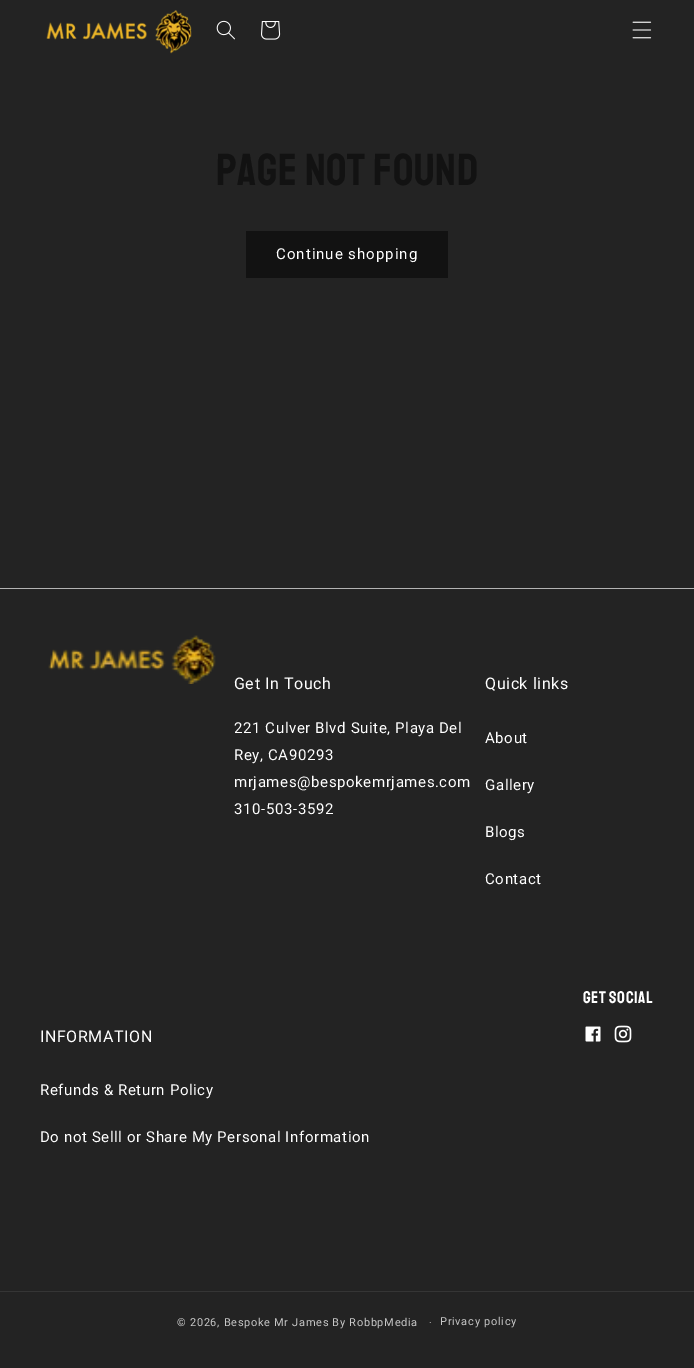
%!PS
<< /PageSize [694 1368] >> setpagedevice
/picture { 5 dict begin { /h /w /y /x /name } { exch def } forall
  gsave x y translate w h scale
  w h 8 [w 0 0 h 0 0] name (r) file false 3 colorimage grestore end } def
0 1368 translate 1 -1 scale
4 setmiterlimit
0.137 setgray
0 0 694 1368 rectfill
(img1.rgb) 46 10 146 44 picture
(img2.rgb) 216 20 19 20 picture
(img3.rgb) 261 21 20 19 picture
(img4.rgb) 632 21 20 18 picture
/Staatliches-Regular [45 0 0 -45 0 0] selectfont
0.071 setgray
216 185 moveto 0.6 0 (Page not found) ashow
246 231 202 47 rectfill
/Roboto-Regular [15 0 0 -15 0 0] selectfont
1 setgray
276 259 moveto 1 0 (Continue shopping) ashow
0.702 setgray
0 588 694 1 rectfill
(img5.rgb) 48 635 168 49 picture
/Roboto-Regular [16 0 0 -16 0 0] selectfont
1 setgray
234 689 moveto 0.6 0 (Get In Touch) ashow
/Roboto-Regular [15 0 0 -15 0 0] selectfont
234 733 moveto 0.6 0 (221 Culver Blvd Suite, Playa Del) ashow
234 760 moveto 0.6 0 (Rey, CA90293) ashow
234 787 moveto 0.6 0 (mrjames@bespokemrjames.com) ashow
234 814 moveto 0.6 0 (310-503-3592) ashow
/Roboto-Regular [16 0 0 -16 0 0] selectfont
485 689 moveto 0.6 0 (Quick links) ashow
/Roboto-Regular [15 0 0 -15 0 0] selectfont
485 743 moveto 0.6 0 (About) ashow
485 790 moveto 0.6 0 (Gallery) ashow
485 837 moveto 0.6 0 (Blogs) ashow
485 884 moveto 0.6 0 (Contact) ashow
/Staatliches-Regular [17 0 0 -17 0 0] selectfont
583 1003 moveto 0.6 0 (GET SOCIAL) ashow
(img6.rgb) 585 1026 16 16 picture
(img7.rgb) 614 1025 18 18 picture
/Roboto-Regular [16 0 0 -16 0 0] selectfont
40 1042 moveto 0.6 0 (INFORMATION) ashow
/Roboto-Regular [15 0 0 -15 0 0] selectfont
40 1095 moveto 0.6 0 (Refunds & Return Policy) ashow
40 1142 moveto 0.6 0 (Do not Selll or Share My Personal Information) ashow
0.208 setgray
0 1291 694 1 rectfill
/Roboto-Regular [11 0 0 -11 0 0] selectfont
0.784 setgray
177 1326 moveto 0.7 0 (© 2026, Bespoke Mr James By RobbpMedia) ashow
/Roboto-Regular [10 0 0 -10 0 0] selectfont
429 1326 moveto 0.7 0 (·) ashow
/Roboto-Regular [11 0 0 -11 0 0] selectfont
440 1325 moveto 0.7 0 (Privacy policy) ashow
showpage
